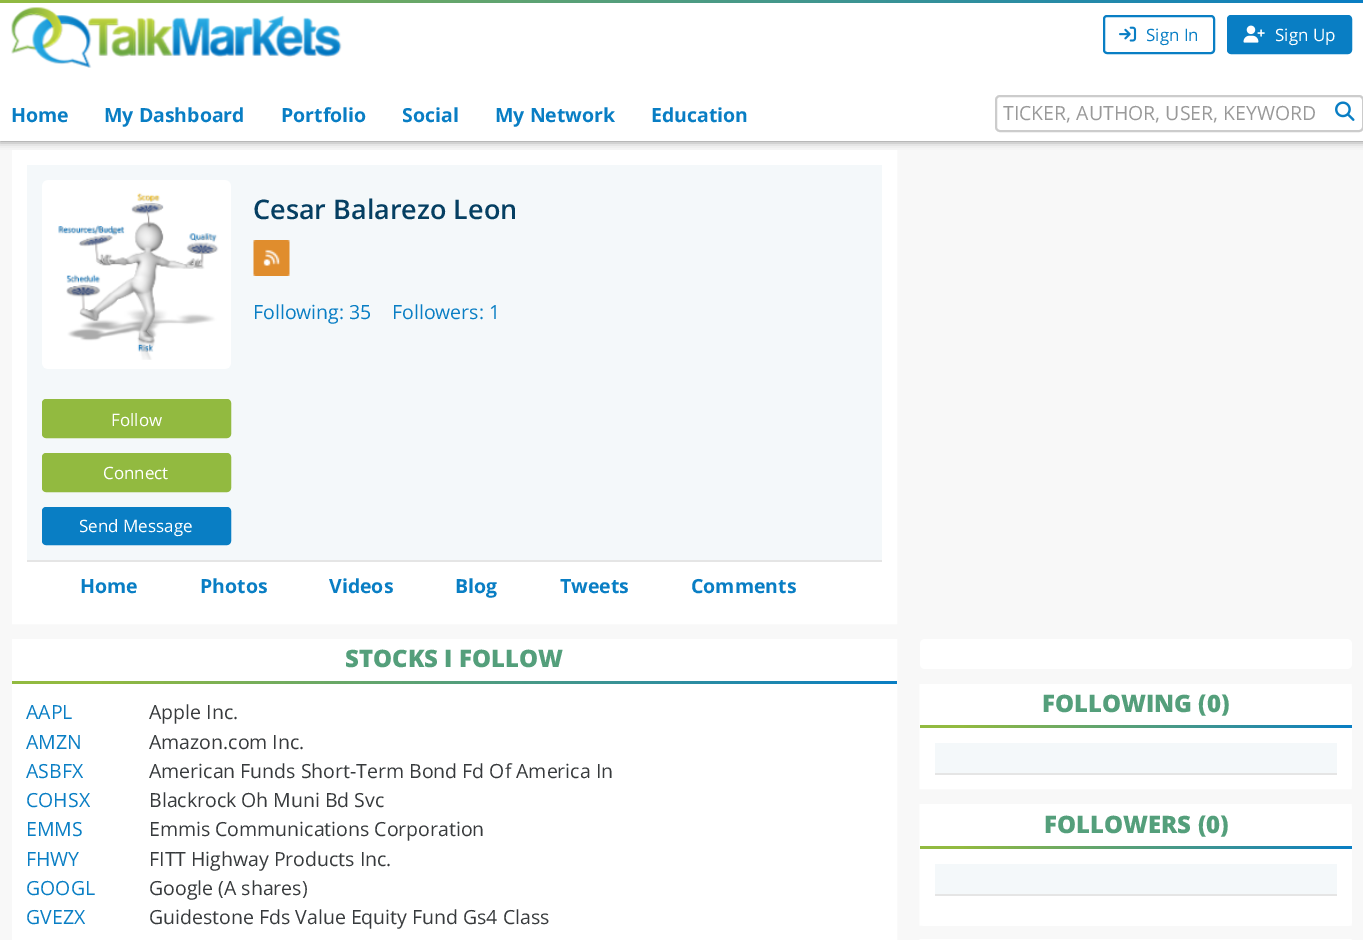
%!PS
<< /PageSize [1363 940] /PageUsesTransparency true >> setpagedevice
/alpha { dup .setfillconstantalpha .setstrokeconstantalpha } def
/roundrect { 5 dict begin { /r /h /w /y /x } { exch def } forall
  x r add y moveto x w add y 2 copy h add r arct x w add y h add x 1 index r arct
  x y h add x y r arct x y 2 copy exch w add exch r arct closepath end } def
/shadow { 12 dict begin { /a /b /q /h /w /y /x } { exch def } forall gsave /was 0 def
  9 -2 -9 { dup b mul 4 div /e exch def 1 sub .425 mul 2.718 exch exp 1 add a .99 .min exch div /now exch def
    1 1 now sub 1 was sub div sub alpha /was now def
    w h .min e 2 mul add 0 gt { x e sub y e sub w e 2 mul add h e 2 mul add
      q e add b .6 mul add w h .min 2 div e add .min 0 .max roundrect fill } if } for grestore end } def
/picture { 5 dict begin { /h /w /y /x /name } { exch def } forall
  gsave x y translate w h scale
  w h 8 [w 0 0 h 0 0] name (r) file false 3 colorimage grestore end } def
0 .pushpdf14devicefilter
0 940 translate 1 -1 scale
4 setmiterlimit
0.973 setgray
0 0 1363 940 rectfill
1 setgray
27 562 855 47 rectfill
15 setlinewidth
newpath 19.5 157.5 moveto 889.5 157.5 lineto 889.5 616.5 lineto 19.5 616.5 lineto closepath stroke
0.467 setgray
0 0 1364 141 0 4 1 shadow
gsave newpath 0 0 moveto 1363 0 lineto 1363 3 lineto 0 3 lineto closepath clip newpath
<< /ShadingType 2 /ColorSpace /DeviceRGB /Coords [0 1.5 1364 1.5] /Extend [true true] /Function << /FunctionType 2 /Domain [0 1] /C0 [0.573 0.729 0.251] /C1 [0.035 0.494 0.769] /N 1 >> >> shfill grestore
1 setgray
0 3 1363 138 rectfill
(img1.rgb) 11 7 331 61 picture
0.035 0.494 0.769 setrgbcolor
2 setlinewidth
1104 16 110 37 3 roundrect stroke
(img2.rgb) 1119 26 18 16 picture
/OpenSans-Regular [17 0 0 -17 0 0] selectfont
1146 41 moveto (Sign In) show
1228 16 123 37 3 roundrect gsave fill grestore
stroke
(img3.rgb) 1243 25 22 18 picture
1 setgray
1275 41 moveto (Sign Up) show
/OpenSans-Bold [19.5 0 0 -19.5 0 0] selectfont
0.035 0.494 0.769 setrgbcolor
11 122 moveto (Home) show
104 122 moveto (My Dashboard) show
281 122 moveto (Portfolio) show
402 122 moveto (Social) show
495 122 moveto (My Network) show
651 122 moveto (Education) show
0.8 setgray
996 96 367 35 4 roundrect stroke
/OpenSans-Regular [19.5 0 0 -19.5 0 0] selectfont
0.6 setgray
1003 120 moveto (TICKER, AUTHOR, USER, KEYWORD) show
(img4.rgb) 1335 101 20 20 picture
0.957 0.973 0.98 setrgbcolor
27 165 855 395 rectfill
0.898 setgray
27 560 855 2 rectfill
/OpenSans-SemiBold [27 0 0 -27 0 0] selectfont
0.02 0.247 0.384 setrgbcolor
253 219 moveto (Cesar Balarezo Leon) show
(img5.rgb) 253 240 37 36 picture
/OpenSans-Regular [19.5 0 0 -19.5 0 0] selectfont
0.035 0.494 0.769 setrgbcolor
253 319 moveto (Following: 35) show
392 319 moveto (Followers: 1) show
(img6.rgb) 42 180 189 189 picture
0.573 0.729 0.251 setrgbcolor
43 400 187 37 3 roundrect gsave fill grestore
stroke
/OpenSans-Regular [17 0 0 -17 0 0] selectfont
1 setgray
111 426 moveto (Follow) show
0.573 0.729 0.251 setrgbcolor
43 454 187 37 3 roundrect gsave fill grestore
stroke
1 setgray
103 479 moveto (Connect) show
0.035 0.494 0.769 setrgbcolor
43 508 187 36 3 roundrect gsave fill grestore
stroke
1 setgray
79 532 moveto (Send Message) show
/OpenSans-Bold [19.5 0 0 -19.5 0 0] selectfont
0.035 0.494 0.769 setrgbcolor
80 593 moveto (Home) show
200 593 moveto (Photos) show
329 593 moveto (Videos) show
455 593 moveto (Blog) show
560 593 moveto (Tweets) show
691 593 moveto (Comments) show
1 setgray
27 654 855 286 rectfill
15 setlinewidth
newpath 19.5 646.5 moveto 889.5 646.5 lineto 889.5 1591.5 lineto 19.5 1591.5 lineto closepath stroke
/OpenSans-ExtraBold [24 0 0 -24 0 0] selectfont
0.329 0.624 0.482 setrgbcolor
345 667 moveto (STOCKS I FOLLOW) show
gsave newpath 12 681 moveto 897 681 lineto 897 684 lineto 12 684 lineto closepath clip newpath
<< /ShadingType 2 /ColorSpace /DeviceRGB /Coords [12 683 897 683] /Extend [true true] /Function << /FunctionType 3 /Domain [0 1] /Functions [<< /FunctionType 2 /Domain [0 1] /C0 [0.573 0.729 0.251] /C1 [0.573 0.729 0.251] /N 1 >> << /FunctionType 2 /Domain [0 1] /C0 [0.573 0.729 0.251] /C1 [0.035 0.494 0.769] /N 1 >>] /Bounds [0.1] /Encode [0 1 0 1] >> >> shfill grestore
/OpenSans-Regular [19.5 0 0 -19.5 0 0] selectfont
0.035 0.494 0.769 setrgbcolor
26 719 moveto (AAPL) show
0.216 0.227 0.235 setrgbcolor
149 719 moveto (Apple Inc.) show
0.035 0.494 0.769 setrgbcolor
26 749 moveto (AMZN) show
0.216 0.227 0.235 setrgbcolor
149 749 moveto (Amazon.com Inc.) show
0.035 0.494 0.769 setrgbcolor
26 778 moveto (ASBFX) show
0.216 0.227 0.235 setrgbcolor
149 778 moveto (American Funds Short-Term Bond Fd Of America In) show
0.035 0.494 0.769 setrgbcolor
26 807 moveto (COHSX) show
0.216 0.227 0.235 setrgbcolor
149 807 moveto (Blackrock Oh Muni Bd Svc) show
0.035 0.494 0.769 setrgbcolor
26 836 moveto (EMMS) show
0.216 0.227 0.235 setrgbcolor
149 836 moveto (Emmis Communications Corporation) show
0.035 0.494 0.769 setrgbcolor
26 866 moveto (FHWY) show
0.216 0.227 0.235 setrgbcolor
149 866 moveto (FITT Highway Products Inc.) show
0.035 0.494 0.769 setrgbcolor
26 895 moveto (GOOGL) show
0.216 0.227 0.235 setrgbcolor
149 895 moveto (Google \(A shares\)) show
0.035 0.494 0.769 setrgbcolor
26 924 moveto (GVEZX) show
0.216 0.227 0.235 setrgbcolor
149 924 moveto (Guidestone Fds Value Equity Fund Gs4 Class) show
1 setgray
920 639 432 30 5 roundrect fill
920 684 432 105 5 roundrect fill
newpath 927 691.5 moveto 1344 691.5 lineto 1344 781.5 lineto 927 781.5 lineto closepath stroke
/OpenSans-ExtraBold [24 0 0 -24 0 0] selectfont
0.329 0.624 0.482 setrgbcolor
1042 712 moveto (FOLLOWING \(0\)) show
gsave newpath 920 725 moveto 1352 725 lineto 1352 728 lineto 920 728 lineto closepath clip newpath
<< /ShadingType 2 /ColorSpace /DeviceRGB /Coords [920 726 1352 726] /Extend [true true] /Function << /FunctionType 3 /Domain [0 1] /Functions [<< /FunctionType 2 /Domain [0 1] /C0 [0.573 0.729 0.251] /C1 [0.573 0.729 0.251] /N 1 >> << /FunctionType 2 /Domain [0 1] /C0 [0.573 0.729 0.251] /C1 [0.035 0.494 0.769] /N 1 >>] /Bounds [0.1] /Encode [0 1 0 1] >> >> shfill grestore
0.957 0.973 0.98 setrgbcolor
935 743 402 30 rectfill
0.898 setgray
935 773 402 2 rectfill
1 setgray
920 804 432 122 5 roundrect fill
newpath 927 811.5 moveto 1344 811.5 lineto 1344 918 lineto 927 918 lineto closepath stroke
0.329 0.624 0.482 setrgbcolor
1044 833 moveto (FOLLOWERS \(0\)) show
gsave newpath 920 846 moveto 1352 846 lineto 1352 849 lineto 920 849 lineto closepath clip newpath
<< /ShadingType 2 /ColorSpace /DeviceRGB /Coords [920 848 1352 848] /Extend [true true] /Function << /FunctionType 3 /Domain [0 1] /Functions [<< /FunctionType 2 /Domain [0 1] /C0 [0.573 0.729 0.251] /C1 [0.573 0.729 0.251] /N 1 >> << /FunctionType 2 /Domain [0 1] /C0 [0.573 0.729 0.251] /C1 [0.035 0.494 0.769] /N 1 >>] /Bounds [0.1] /Encode [0 1 0 1] >> >> shfill grestore
0.957 0.973 0.98 setrgbcolor
935 864 402 30 rectfill
0.898 setgray
935 894 402 2 rectfill
1 setgray
newpath 927 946.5 moveto 1344 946.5 lineto 1344 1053 lineto 927 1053 lineto closepath stroke
.poppdf14devicefilter showpage
